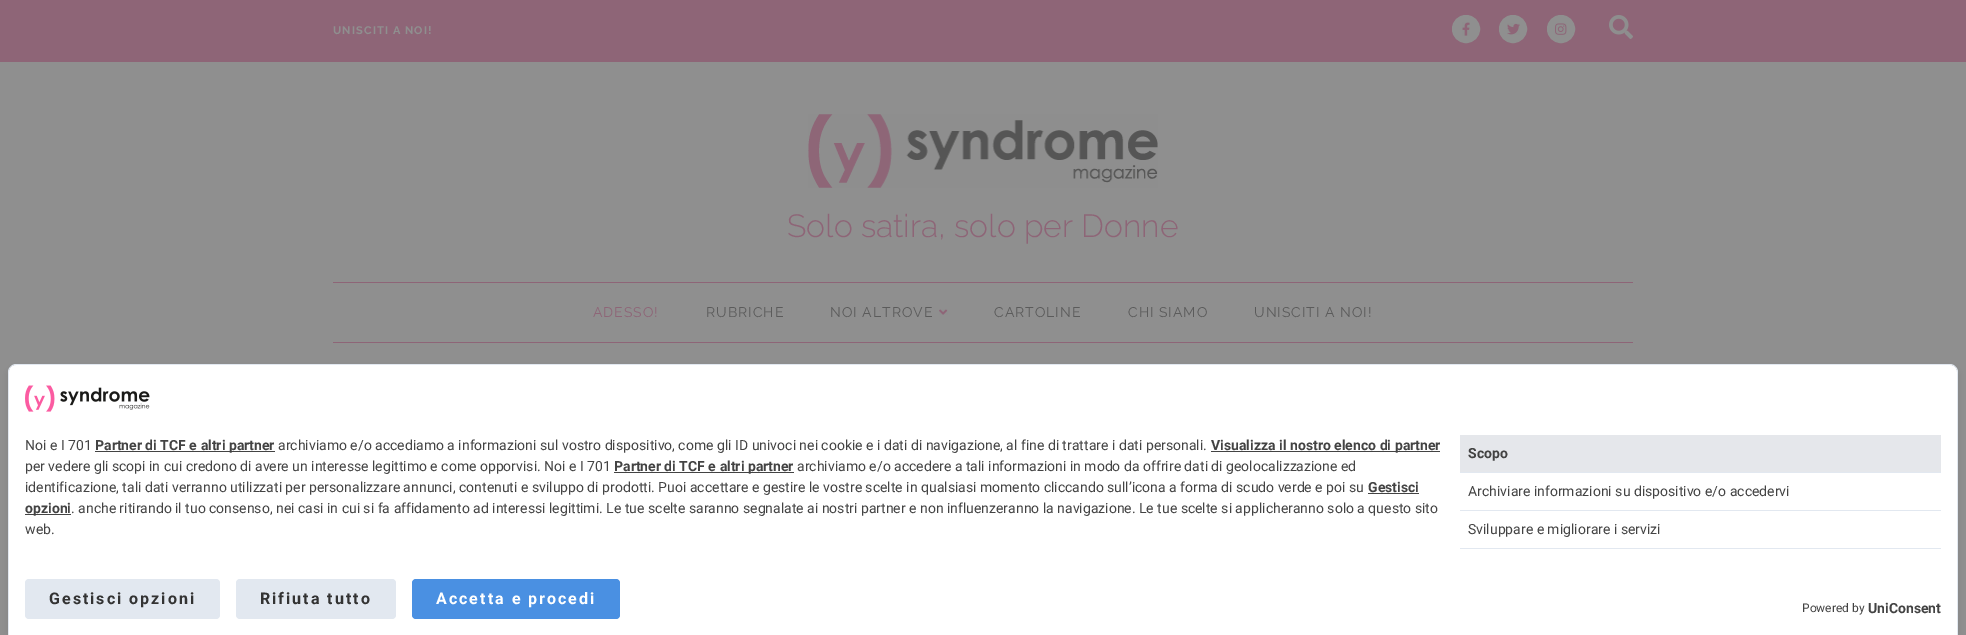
%!PS
<< /PageSize [1966 635] /PageUsesTransparency true >> setpagedevice
/alpha { dup .setfillconstantalpha .setstrokeconstantalpha } def
/roundrect { 5 dict begin { /r /h /w /y /x } { exch def } forall
  x r add y moveto x w add y 2 copy h add r arct x w add y h add x 1 index r arct
  x y h add x y r arct x y 2 copy exch w add exch r arct closepath end } def
/shadow { 12 dict begin { /a /b /q /h /w /y /x } { exch def } forall gsave /was 0 def
  9 -2 -9 { dup b mul 4 div /e exch def 1 sub .425 mul 2.718 exch exp 1 add a .99 .min exch div /now exch def
    1 1 now sub 1 was sub div sub alpha /was now def
    w h .min e 2 mul add 0 gt { x e sub y e sub w e 2 mul add h e 2 mul add
      q e add b .6 mul add w h .min 2 div e add .min 0 .max roundrect fill } if } for grestore end } def
/picture { 5 dict begin { /h /w /y /x /name } { exch def } forall
  gsave x y translate w h scale
  w h 8 [w 0 0 h 0 0] name (r) file false 3 colorimage grestore end } def
0 .pushpdf14devicefilter
0 635 translate 1 -1 scale
4 setmiterlimit
0.561 setgray
0 0 1966 635 rectfill
0.557 0.396 0.467 setrgbcolor
0 0 1966 62 rectfill
/Raleway-Bold [11 0 0 -11 0 0] selectfont
0.561 setgray
333 34 moveto 1.1 0 (UNISCITI A NOI!) ashow
newpath 1466 29 13.5 0 360 arc closepath gsave fill grestore
stroke
(img1.rgb) 1462 22 8 14 picture
newpath 1513 29 13.5 0 360 arc closepath gsave fill grestore
stroke
(img2.rgb) 1507 23 13 12 picture
newpath 1561 29 13.5 0 360 arc closepath gsave fill grestore
stroke
(img3.rgb) 1555 23 12 12 picture
(img4.rgb) 1609 15 24 24 picture
(img5.rgb) 808 114 350 74 picture
/Raleway-Light [32 0 0 -32 0 0] selectfont
0.557 0.396 0.467 setrgbcolor
787 237 moveto (Solo satira, solo per Donne) show
333 282 1300 1 rectfill
333 342 1300 1 rectfill
/Raleway-Regular [14 0 0 -14 0 0] selectfont
593 317 moveto 1 0 (ADESSO!) ashow
0.357 setgray
706 317 moveto 1 0 (RUBRICHE) ashow
830 317 moveto 1 0 (NOI ALTROVE) ashow
(img6.rgb) 939 309 9 6 picture
994 317 moveto 1 0 (CARTOLINE) ashow
1128 317 moveto 1 0 (CHI SIAMO) ashow
1254 317 moveto 1 0 (UNISCITI A NOI!) ashow
0 setgray
9 369 1948 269 7 3 0.1 shadow
1 setgray
newpath 16 365 moveto 1950 365 lineto 1954 365 1957 368 1957 372 curveto 1957 635 lineto 9 635 lineto 9 372 lineto 9 368 12 365 16 365 curveto closepath fill
0.886 0.91 0.941 setrgbcolor
newpath 16 364 moveto 1950 364 lineto 1954 364 1958 368 1958 372 curveto 1958 635 lineto 8 635 lineto 8 372 lineto 8 368 12 364 16 364 curveto closepath 16 365 moveto 1950 365 lineto 1954 365 1957 368 1957 372 curveto 1957 635 lineto 9 635 lineto 9 372 lineto 9 368 12 365 16 365 curveto closepath eofill
(img7.rgb) 25 385 125 27 picture
/Roboto-Regular [14 0 0 -14 0 0] selectfont
0.263 setgray
25 450 moveto (Noi e I 701) show
95 451 180 1 rectfill
/Roboto-Bold [14 0 0 -14 0 0] selectfont
95 450 moveto (Partner di TCF e altri partner) show
/Roboto-Regular [14 0 0 -14 0 0] selectfont
278 450 moveto (archiviamo e/o accediamo a informazioni sul vostro dispositivo, come gli ID univoci nei cookie e i dati di navigazione, al fine di trattare i dati personali.) show
1211 451 229 1 rectfill
/Roboto-Bold [14 0 0 -14 0 0] selectfont
1211 450 moveto (Visualizza il nostro elenco di partner) show
/Roboto-Regular [14 0 0 -14 0 0] selectfont
25 471 moveto (per vedere gli scopi in cui credono di avere un interesse legittimo e come opporvisi. Noi e I 701) show
614 472 180 1 rectfill
/Roboto-Bold [14 0 0 -14 0 0] selectfont
614 471 moveto (Partner di TCF e altri partner) show
/Roboto-Regular [14 0 0 -14 0 0] selectfont
797 471 moveto (archiviamo e/o accedere a tali informazioni in modo da offrire dati di geolocalizzazione ed) show
25 492 moveto (identificazione, tali dati verranno utilizzati per personalizzare annunci, contenuti e sviluppo di prodotti. Puoi accettare e gestire le vostre scelte in qualsiasi momento cliccando sull’icona a forma di scudo verde e poi su) show
/Roboto-Bold [14 0 0 -14 0 0] selectfont
1368 492 moveto (Gestisci) show
1368 493 51 1 rectfill
25 514 46 1 rectfill
25 513 moveto (opzioni) show
/Roboto-Regular [14 0 0 -14 0 0] selectfont
71 513 moveto (. anche ritirando il tuo consenso, nei casi in cui si fa affidamento ad interessi legittimi. Le tue scelte saranno segnalate ai nostri partner e non influenzeranno la navigazione. Le tue scelte si applicheranno solo a questo sito) show
25 534 moveto (web.) show
0.898 0.906 0.922 setrgbcolor
1460 435 481 37 rectfill
0.886 0.91 0.941 setrgbcolor
1460 472 481 1 rectfill
/Roboto-Bold [14 0 0 -14 0 0] selectfont
0.263 setgray
1468 458 moveto (Scopo) show
0.886 0.91 0.941 setrgbcolor
1460 510 481 1 rectfill
/Roboto-Regular [14 0 0 -14 0 0] selectfont
0.263 setgray
1468 496 moveto (Archiviare informazioni su dispositivo e/o accedervi) show
0.886 0.91 0.941 setrgbcolor
1460 548 481 1 rectfill
0.263 setgray
1468 534 moveto (Sviluppare e migliorare i servizi) show
0.886 0.91 0.941 setrgbcolor
25 579 195 40 4 roundrect fill
/Roboto-Bold [16 0 0 -16 0 0] selectfont
0.2 setgray
49 604 moveto 2 0 (Gestisci opzioni) ashow
0.886 0.91 0.941 setrgbcolor
236 579 160 40 4 roundrect fill
0.2 setgray
260 604 moveto 2 0 (Rifiuta tutto) ashow
0.29 0.565 0.886 setrgbcolor
412 579 208 40 4 roundrect fill
1 setgray
436 604 moveto 2 0 (Accetta e procedi) ashow
/Roboto-Regular [12 0 0 -12 0 0] selectfont
0.263 setgray
1802 612 moveto (Powered by) show
/Roboto-Bold [14 0 0 -14 0 0] selectfont
1868 613 moveto (UniConsent) show
.poppdf14devicefilter showpage
